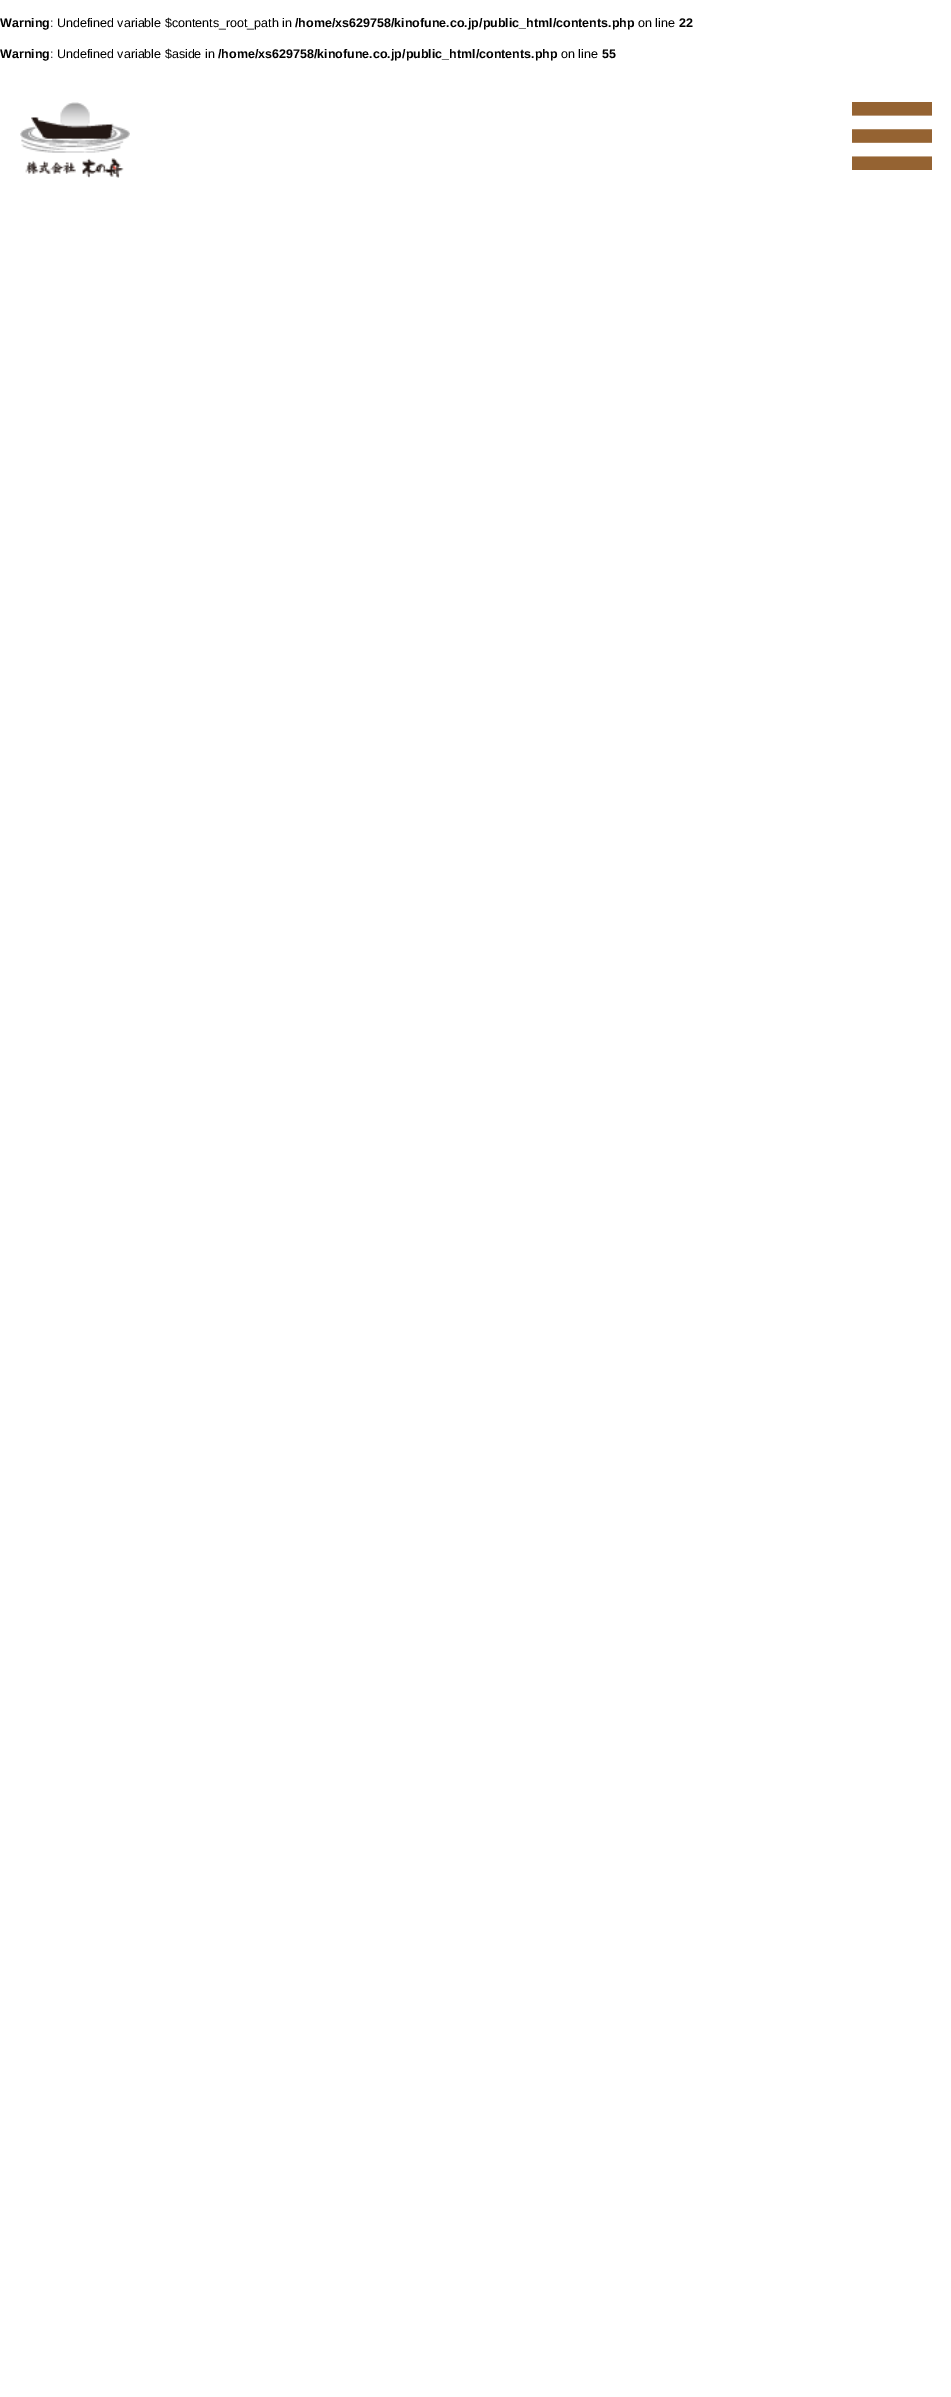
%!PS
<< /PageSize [951 2397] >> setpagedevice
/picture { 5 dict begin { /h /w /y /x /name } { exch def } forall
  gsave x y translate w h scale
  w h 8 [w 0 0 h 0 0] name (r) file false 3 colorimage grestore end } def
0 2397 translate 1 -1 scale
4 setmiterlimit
1 setgray
0 0 951 2397 rectfill
/LiberationSans-Bold [12.5 0 0 -12.5 0 0] selectfont
0 setgray
0 27 moveto (Warning) show
/LiberationSans-Regular [12.5 0 0 -12.5 0 0] selectfont
50 27 moveto (: Undefined variable $contents_root_path in) show
/LiberationSans-Bold [12.5 0 0 -12.5 0 0] selectfont
295 27 moveto (/home/xs629758/kinofune.co.jp/public_html/contents.php) show
/LiberationSans-Regular [12.5 0 0 -12.5 0 0] selectfont
638 27 moveto (on line) show
/LiberationSans-Bold [12.5 0 0 -12.5 0 0] selectfont
679 27 moveto (22) show
0 58 moveto (Warning) show
/LiberationSans-Regular [12.5 0 0 -12.5 0 0] selectfont
50 58 moveto (: Undefined variable $aside in) show
/LiberationSans-Bold [12.5 0 0 -12.5 0 0] selectfont
218 58 moveto (/home/xs629758/kinofune.co.jp/public_html/contents.php) show
/LiberationSans-Regular [12.5 0 0 -12.5 0 0] selectfont
561 58 moveto (on line) show
/LiberationSans-Bold [12.5 0 0 -12.5 0 0] selectfont
602 58 moveto (55) show
(img1.rgb) 20 102 110 76 picture
(img2.rgb) 852 102 80 68 picture
showpage
